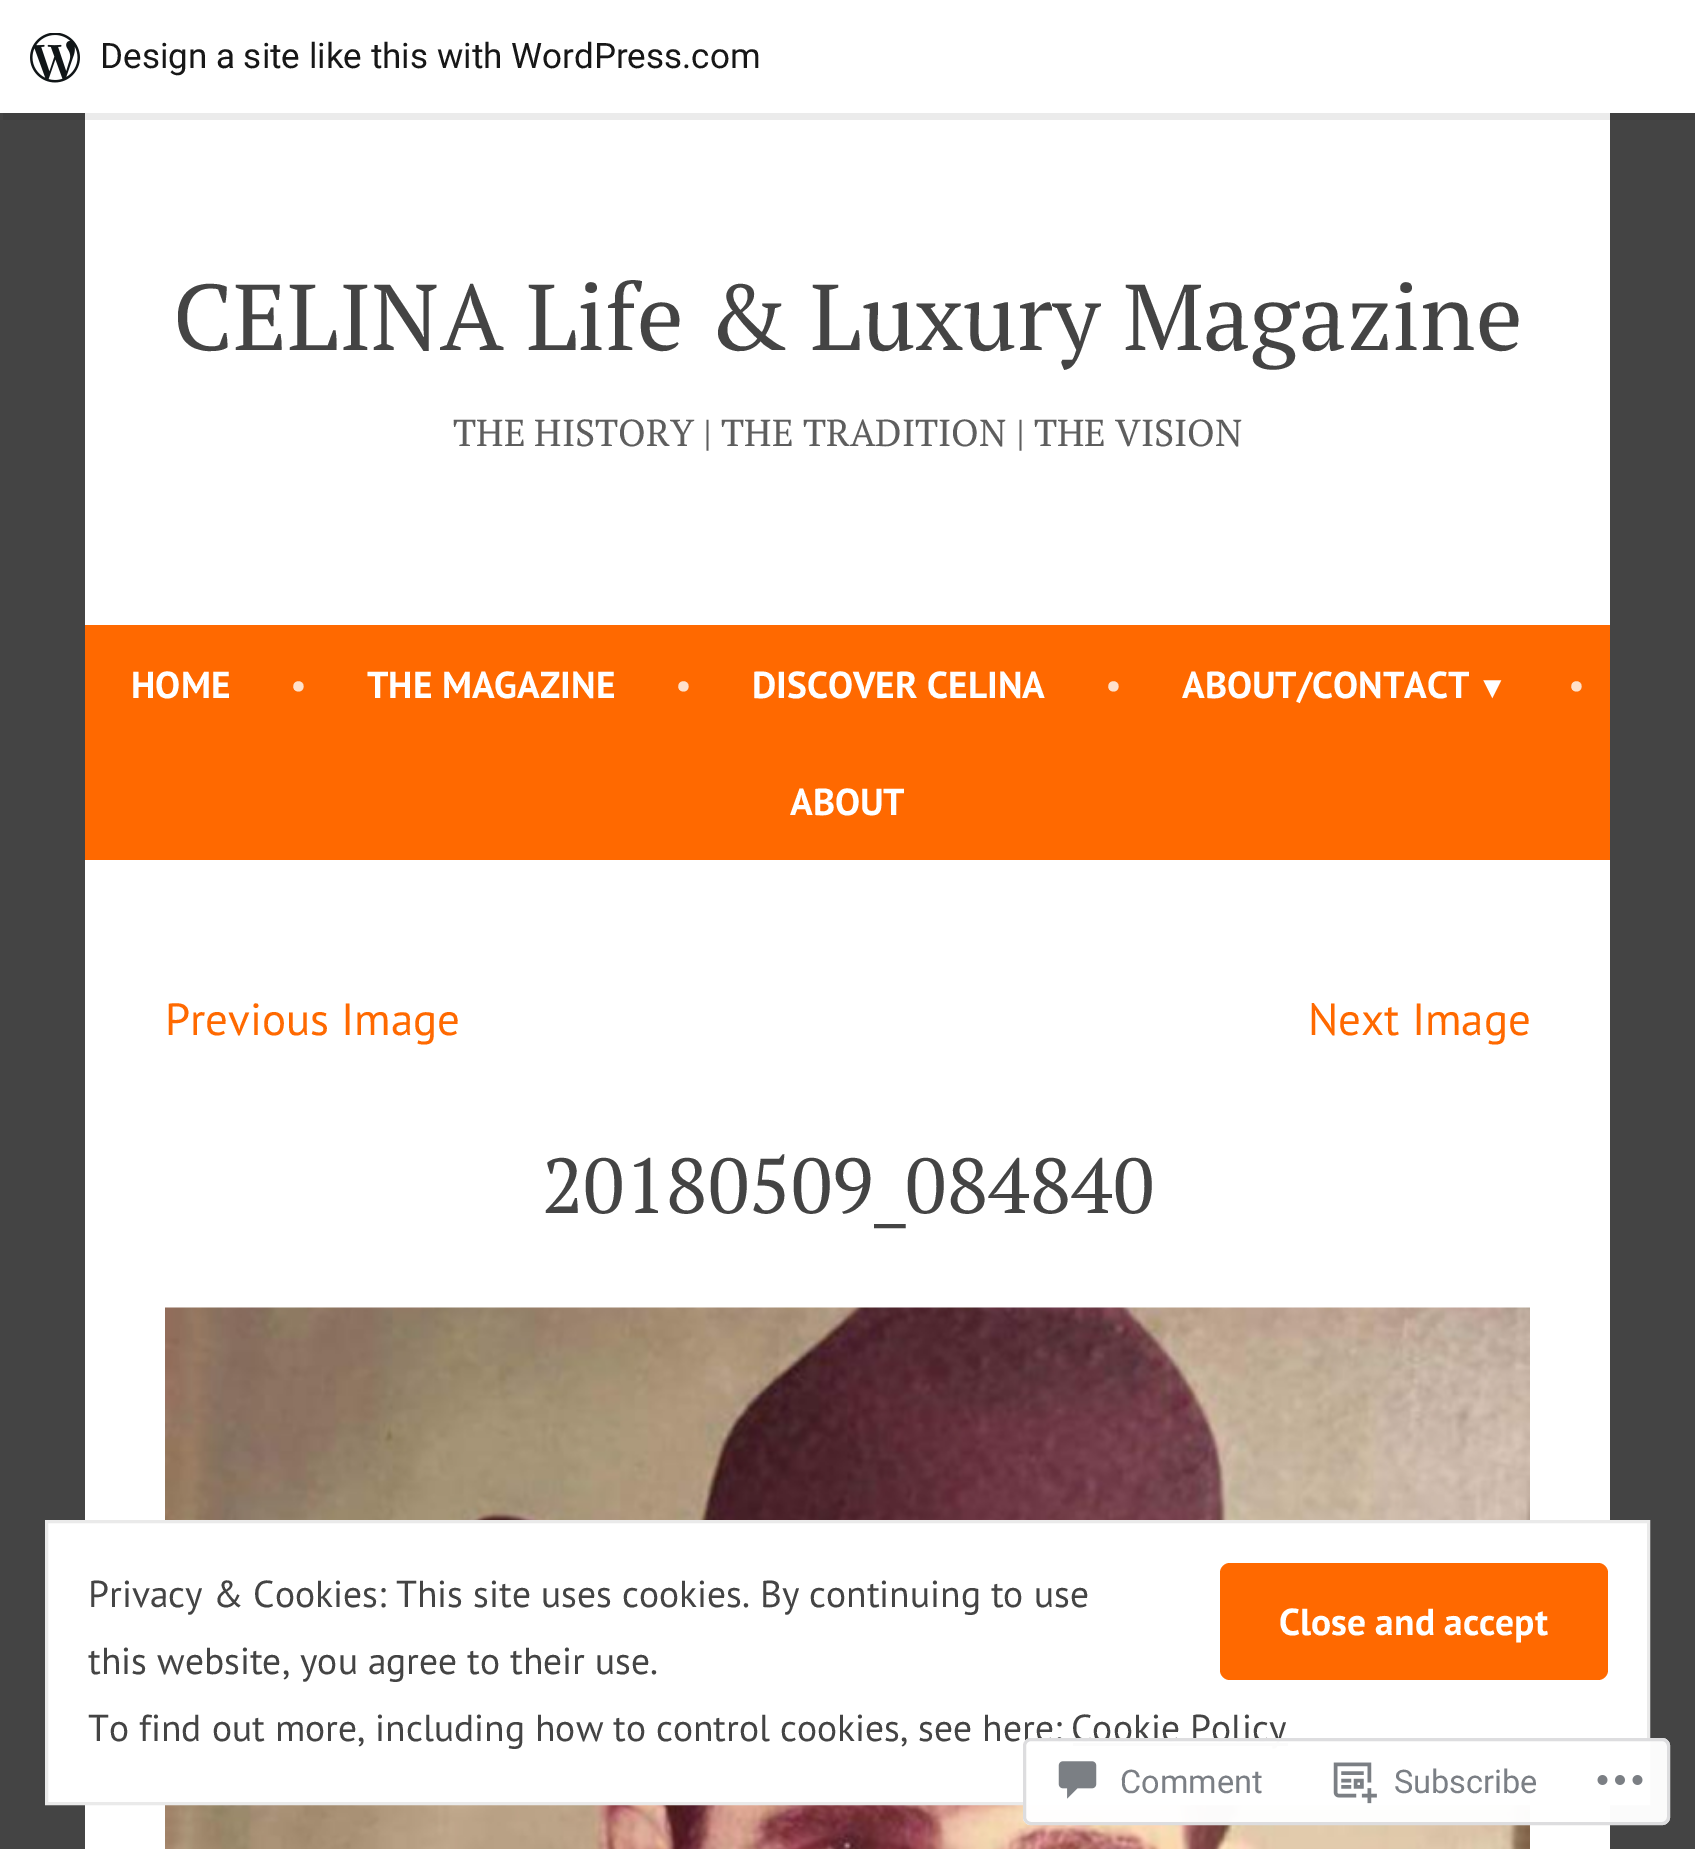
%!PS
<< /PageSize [1695 1849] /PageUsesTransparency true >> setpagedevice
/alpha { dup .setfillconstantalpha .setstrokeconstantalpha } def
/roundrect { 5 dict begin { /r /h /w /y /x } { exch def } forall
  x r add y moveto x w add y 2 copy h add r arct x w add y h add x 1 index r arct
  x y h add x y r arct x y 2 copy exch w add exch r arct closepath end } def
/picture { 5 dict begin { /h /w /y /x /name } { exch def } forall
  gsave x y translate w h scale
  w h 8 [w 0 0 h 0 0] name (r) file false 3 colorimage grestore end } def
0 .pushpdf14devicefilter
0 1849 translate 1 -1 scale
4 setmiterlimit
0.267 setgray
0 0 1695 1849 rectfill
1 setgray
85 113 1525 1736 rectfill
0.08 alpha
0 setgray
newpath 3 112 moveto 3 120 lineto 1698 120 lineto 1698 8 lineto 1695 8 lineto 1695 112 lineto closepath fill
1 alpha
1 setgray
0 0 1695 113 rectfill
(img1.rgb) 30 33 50 50 picture
/Roboto-Regular [35 0 0 -35 0 0] selectfont
0.09 setgray
100 68 moveto (Design a site like this with WordPress.com) show
/PTSerif-Regular [93.25 0 0 -93.25 0 0] selectfont
0.267 setgray
173 350 moveto (CELINA Life & Luxury Magazine) show
/PTSerif-Regular [37.5 0 0 -37.5 0 0] selectfont
0.369 setgray
453 446 moveto (THE HISTORY | THE TRADITION | THE VISION) show
1 0.412 0 setrgbcolor
85 625 1525 235 rectfill
/PTSans-Bold [37.5 0 0 -37.5 0 0] selectfont
1 setgray
131 698 moveto (HOME) show
/PTSans-Regular [37.5 0 0 -37.5 0 0] selectfont
1 0.882 0.8 setrgbcolor
290 698 moveto (•) show
/PTSans-Bold [37.5 0 0 -37.5 0 0] selectfont
1 setgray
367 698 moveto (THE MAGAZINE) show
/PTSans-Regular [37.5 0 0 -37.5 0 0] selectfont
1 0.882 0.8 setrgbcolor
675 698 moveto (•) show
/PTSans-Bold [37.5 0 0 -37.5 0 0] selectfont
1 setgray
752 698 moveto (DISCOVER CELINA) show
/PTSans-Regular [37.5 0 0 -37.5 0 0] selectfont
1 0.882 0.8 setrgbcolor
1105 698 moveto (•) show
/PTSans-Bold [37.5 0 0 -37.5 0 0] selectfont
1 setgray
1182 698 moveto (ABOUT/CONTACT) show
/LiberationSans-Bold [31 0 0 -31 0 0] selectfont
1477 698 moveto (▼) show
/PTSans-Regular [37.5 0 0 -37.5 0 0] selectfont
1 0.882 0.8 setrgbcolor
1568 698 moveto (•) show
/PTSans-Bold [37.5 0 0 -37.5 0 0] selectfont
1 setgray
790 815 moveto (ABOUT) show
/PTSans-Regular [45 0 0 -45 0 0] selectfont
1 0.412 0 setrgbcolor
165 1035 moveto (Previous Image) show
1308 1035 moveto (Next Image) show
/PTSerif-Regular [77.75 0 0 -77.75 0 0] selectfont
0.267 setgray
542 1213 moveto (20180509_084840) show
(img2.rgb) 165 1307 1365 542 picture
1 setgray
newpath 46.5 1521.5 moveto 1648.5 1521.5 lineto 1648.5 1803.5 lineto 46.5 1803.5 lineto closepath gsave fill grestore
0.918 setgray
3 setlinewidth
stroke
/PTSans-Regular [37.5 0 0 -37.5 0 0] selectfont
0.267 setgray
88 1607 moveto (Privacy & Cookies: This site uses cookies. By continuing to use) show
1 0.412 0 setrgbcolor
1220 1563 388 117 10 roundrect fill
/PTSans-Bold [37.5 0 0 -37.5 0 0] selectfont
1 setgray
1279 1635 moveto (Close and accept) show
/PTSans-Regular [37.5 0 0 -37.5 0 0] selectfont
0.267 setgray
88 1674 moveto (this website, you agree to their use.) show
88 1741 moveto (To find out more, including how to control cookies, see here:) show
1073 1743 215 3 rectfill
1071 1741 moveto (Cookie Policy) show
0.98 alpha
1 setgray
1023 1738 647 87 8 roundrect fill
0.863 0.863 0.871 setrgbcolor
1024.5 1739.5 644 84 6.5 roundrect stroke
1 alpha
(img3.rgb) 1058 1761 39 38 picture
/Roboto-Regular [32.5 0 0 -32.5 0 0] selectfont
0.482 0.498 0.522 setrgbcolor
1120 1793 moveto (Comment) show
(img4.rgb) 1333 1762 44 42 picture
1394 1793 moveto (Subscribe) show
(img5.rgb) 1597 1775 46 10 picture
.poppdf14devicefilter showpage
